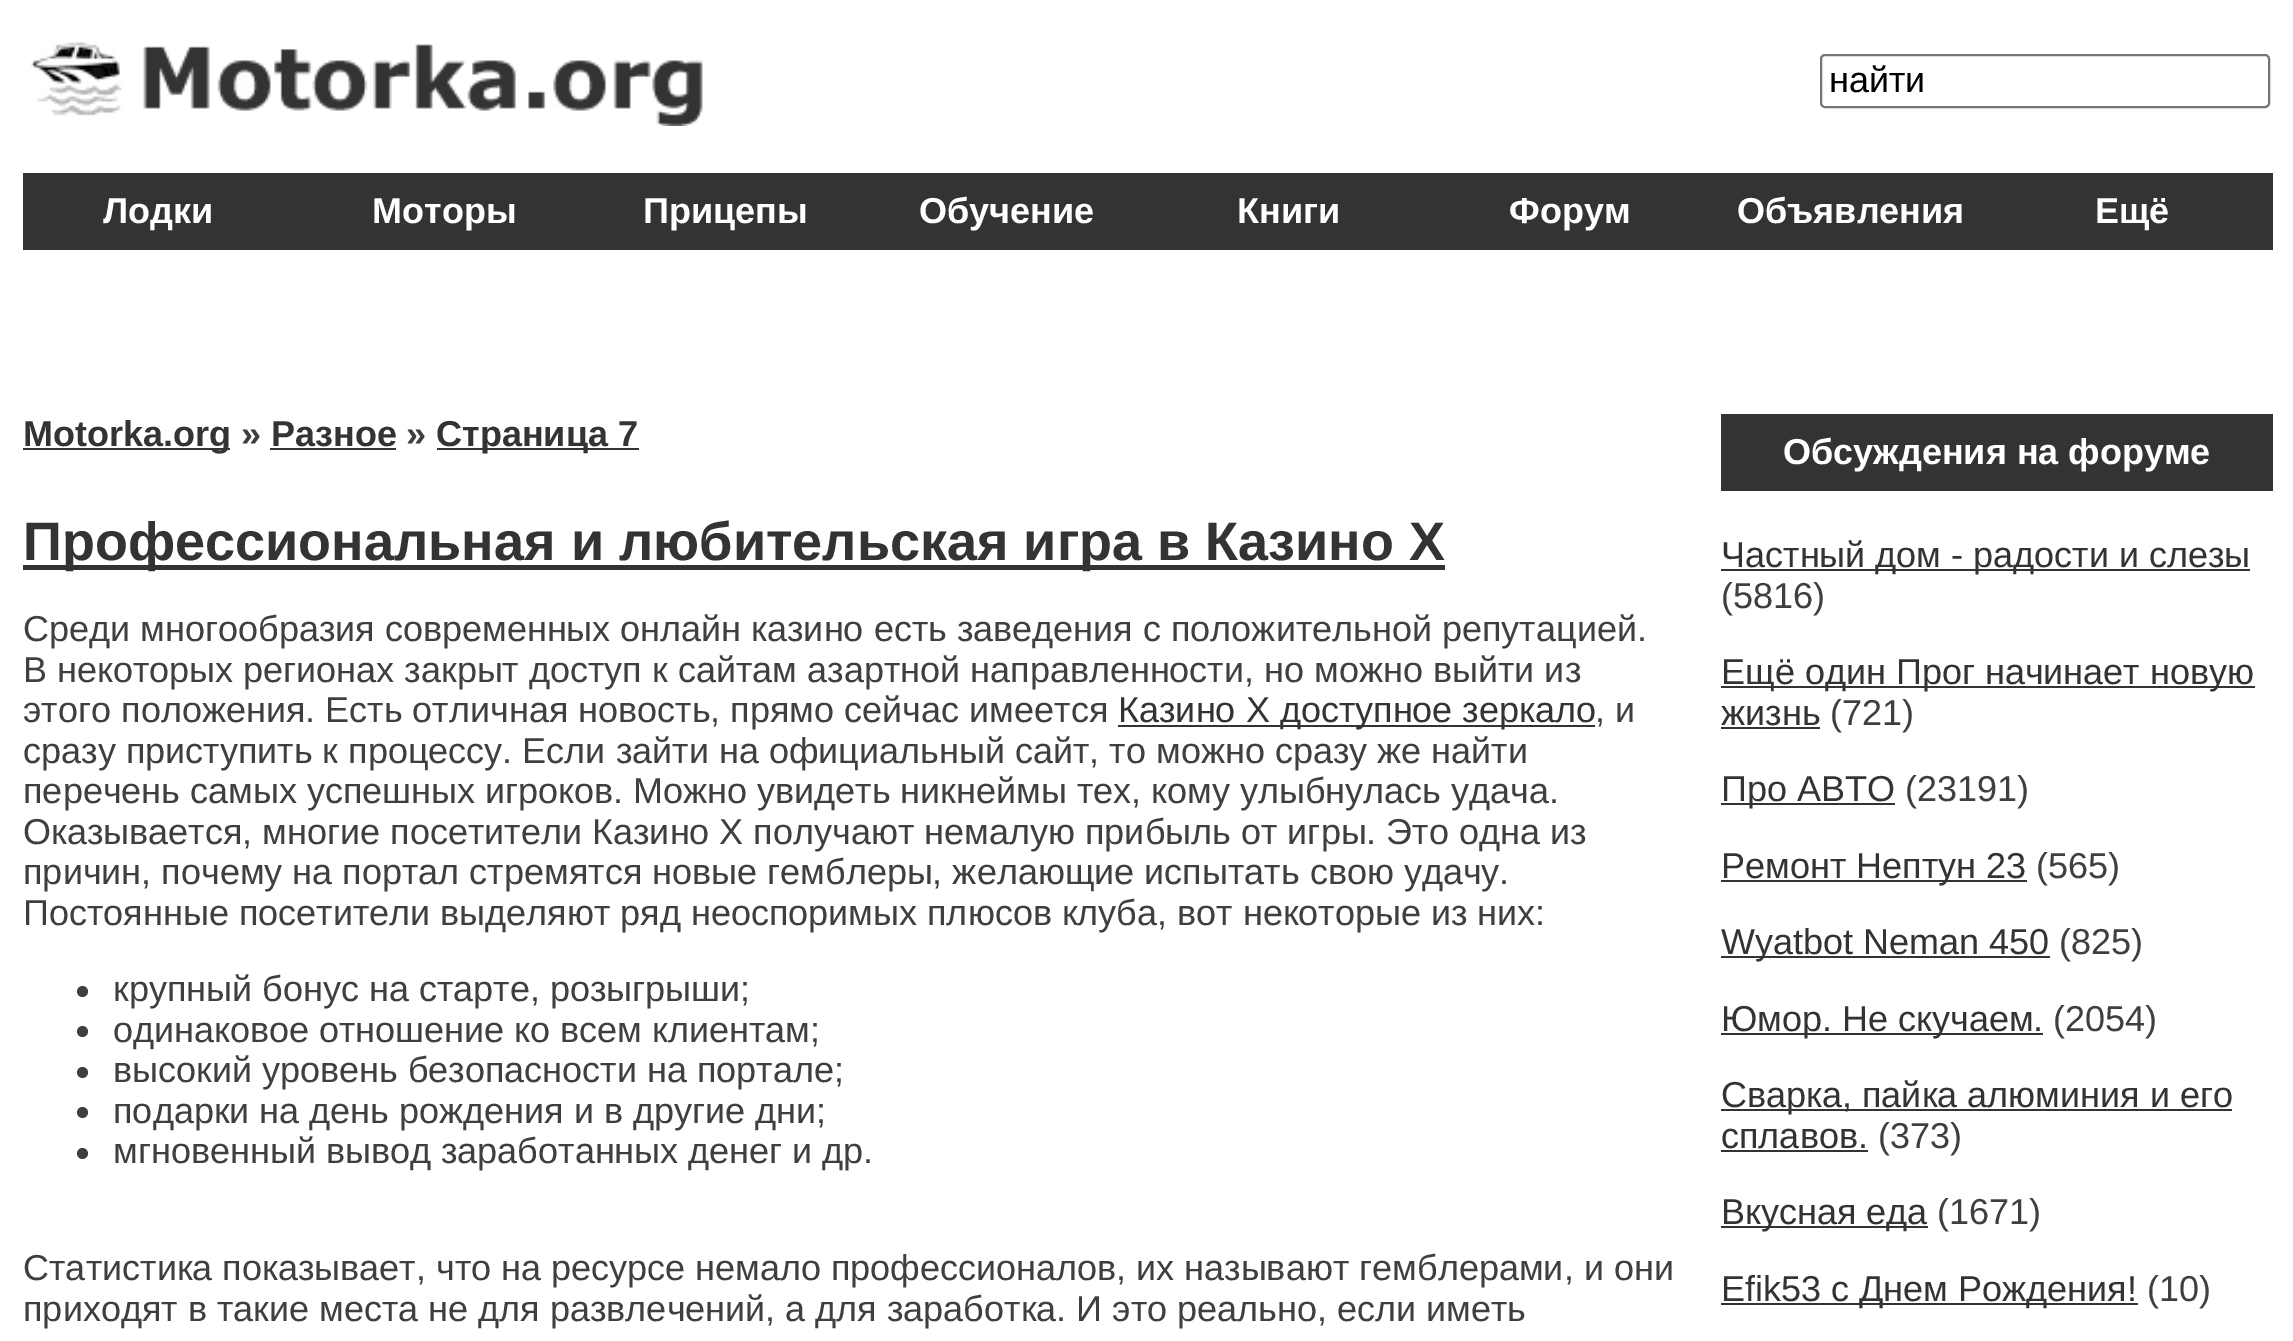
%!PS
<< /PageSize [2293 1341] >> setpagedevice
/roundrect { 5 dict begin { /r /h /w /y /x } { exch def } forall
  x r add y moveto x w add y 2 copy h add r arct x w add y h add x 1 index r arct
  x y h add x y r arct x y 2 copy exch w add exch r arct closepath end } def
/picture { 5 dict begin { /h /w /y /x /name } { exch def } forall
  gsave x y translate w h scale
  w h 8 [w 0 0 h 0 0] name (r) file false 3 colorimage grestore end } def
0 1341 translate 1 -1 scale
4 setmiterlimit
1 setgray
0 0 2293 1341 rectfill
(img1.rgb) 31 42 672 84 picture
0.463 setgray
2 setlinewidth
1821 55 448 52 4 roundrect stroke
/LiberationSans-Regular [36 0 0 -36 0 0] selectfont
0 setgray
1829 92 moveto (найти) show
0.2 setgray
23 173 2250 77 rectfill
/LiberationSans-Bold [36 0 0 -36 0 0] selectfont
1 setgray
103 223 moveto (Лодки) show
372 223 moveto (Моторы) show
643 223 moveto (Прицепы) show
919 223 moveto (Обучение) show
1237 223 moveto (Книги) show
1509 223 moveto (Форум) show
1737 223 moveto (Объявления) show
2095 223 moveto (Ещё) show
0.2 setgray
23 448 207 2 rectfill
23 446 moveto (Motorka.org) show
0.247 setgray
241 446 moveto (») show
0.2 setgray
271 446 moveto (Разное) show
270 448 126 2 rectfill
0.247 setgray
406 446 moveto (») show
0.2 setgray
437 448 202 2 rectfill
436 446 moveto (Страница 7) show
23 565 1422 5 rectfill
/LiberationSans-Bold [54 0 0 -54 0 0] selectfont
23 560 moveto (Профессиональная и любительская игра в Казино Х) show
/LiberationSans-Regular [36 0 0 -36 0 0] selectfont
0.247 setgray
23 641 moveto (Среди многообразия современных онлайн казино есть заведения с положительной репутацией.) show
23 682 moveto (В некоторых регионах закрыт доступ к сайтам азартной направленности, но можно выйти из) show
23 722 moveto (этого положения. Есть отличная новость, прямо сейчас имеется) show
0.2 setgray
1118 725 477 2 rectfill
1118 722 moveto (Казино Х доступное зеркало) show
0.247 setgray
1595 722 moveto (, и) show
23 763 moveto (сразу приступить к процессу. Если зайти на официальный сайт, то можно сразу же найти) show
23 803 moveto (перечень самых успешных игроков. Можно увидеть никнеймы тех, кому улыбнулась удача.) show
23 844 moveto (Оказывается, многие посетители Казино Х получают немалую прибыль от игры. Это одна из) show
23 884 moveto (причин, почему на портал стремятся новые гемблеры, желающие испытать свою удачу.) show
23 925 moveto (Постоянные посетители выделяют ряд неоспоримых плюсов клуба, вот некоторые из них:) show
newpath 82.5 991.5 5.5 0 360 arc closepath fill
113 1001 moveto (крупный бонус на старте, розыгрыши;) show
newpath 82.5 1031.5 5.5 0 360 arc closepath fill
113 1042 moveto (одинаковое отношение ко всем клиентам;) show
newpath 82.5 1072.5 5.5 0 360 arc closepath fill
113 1082 moveto (высокий уровень безопасности на портале;) show
newpath 82.5 1112.5 5.5 0 360 arc closepath fill
113 1123 moveto (подарки на день рождения и в другие дни;) show
newpath 82.5 1153.5 5.5 0 360 arc closepath fill
113 1163 moveto (мгновенный вывод заработанных денег и др.) show
23 1280 moveto (Статистика показывает, что на ресурсе немало профессионалов, их называют гемблерами, и они) show
23 1321 moveto (приходят в такие места не для развлечений, а для заработка. И это реально, если иметь) show
0.2 setgray
1721 414 552 77 rectfill
/LiberationSans-Bold [36 0 0 -36 0 0] selectfont
1 setgray
1783 464 moveto (Обсуждения на форуме) show
0.2 setgray
1721 569 529 2 rectfill
/LiberationSans-Regular [36 0 0 -36 0 0] selectfont
1721 567 moveto (Частный дом - радости и слезы) show
0.247 setgray
1721 608 moveto (\(5816\)) show
0.2 setgray
1721 686 534 2 rectfill
1721 684 moveto (Ещё один Прог начинает новую) show
1721 725 moveto (жизнь) show
1721 727 99 2 rectfill
0.247 setgray
1830 725 moveto (\(721\)) show
0.2 setgray
1721 803 174 2 rectfill
1721 801 moveto (Про АВТО) show
0.247 setgray
1905 801 moveto (\(23191\)) show
0.2 setgray
1721 880 306 2 rectfill
1721 878 moveto (Ремонт Нептун 23) show
0.247 setgray
2036 878 moveto (\(565\)) show
0.2 setgray
1721 956 329 2 rectfill
1721 954 moveto (Wyatbot Neman 450) show
0.247 setgray
2059 954 moveto (\(825\)) show
0.2 setgray
1721 1033 322 2 rectfill
1721 1031 moveto (Юмор. Не скучаем.) show
0.247 setgray
2053 1031 moveto (\(2054\)) show
0.2 setgray
1721 1109 511 2 rectfill
1721 1107 moveto (Сварка, пайка алюминия и его) show
1721 1148 moveto (сплавов.) show
1721 1150 147 2 rectfill
0.247 setgray
1878 1148 moveto (\(373\)) show
0.2 setgray
1721 1226 207 2 rectfill
1721 1224 moveto (Вкусная еда) show
0.247 setgray
1937 1224 moveto (\(1671\)) show
0.2 setgray
1721 1303 417 2 rectfill
1721 1301 moveto (Efik53 с Днем Рождения!) show
0.247 setgray
2147 1301 moveto (\(10\)) show
showpage
